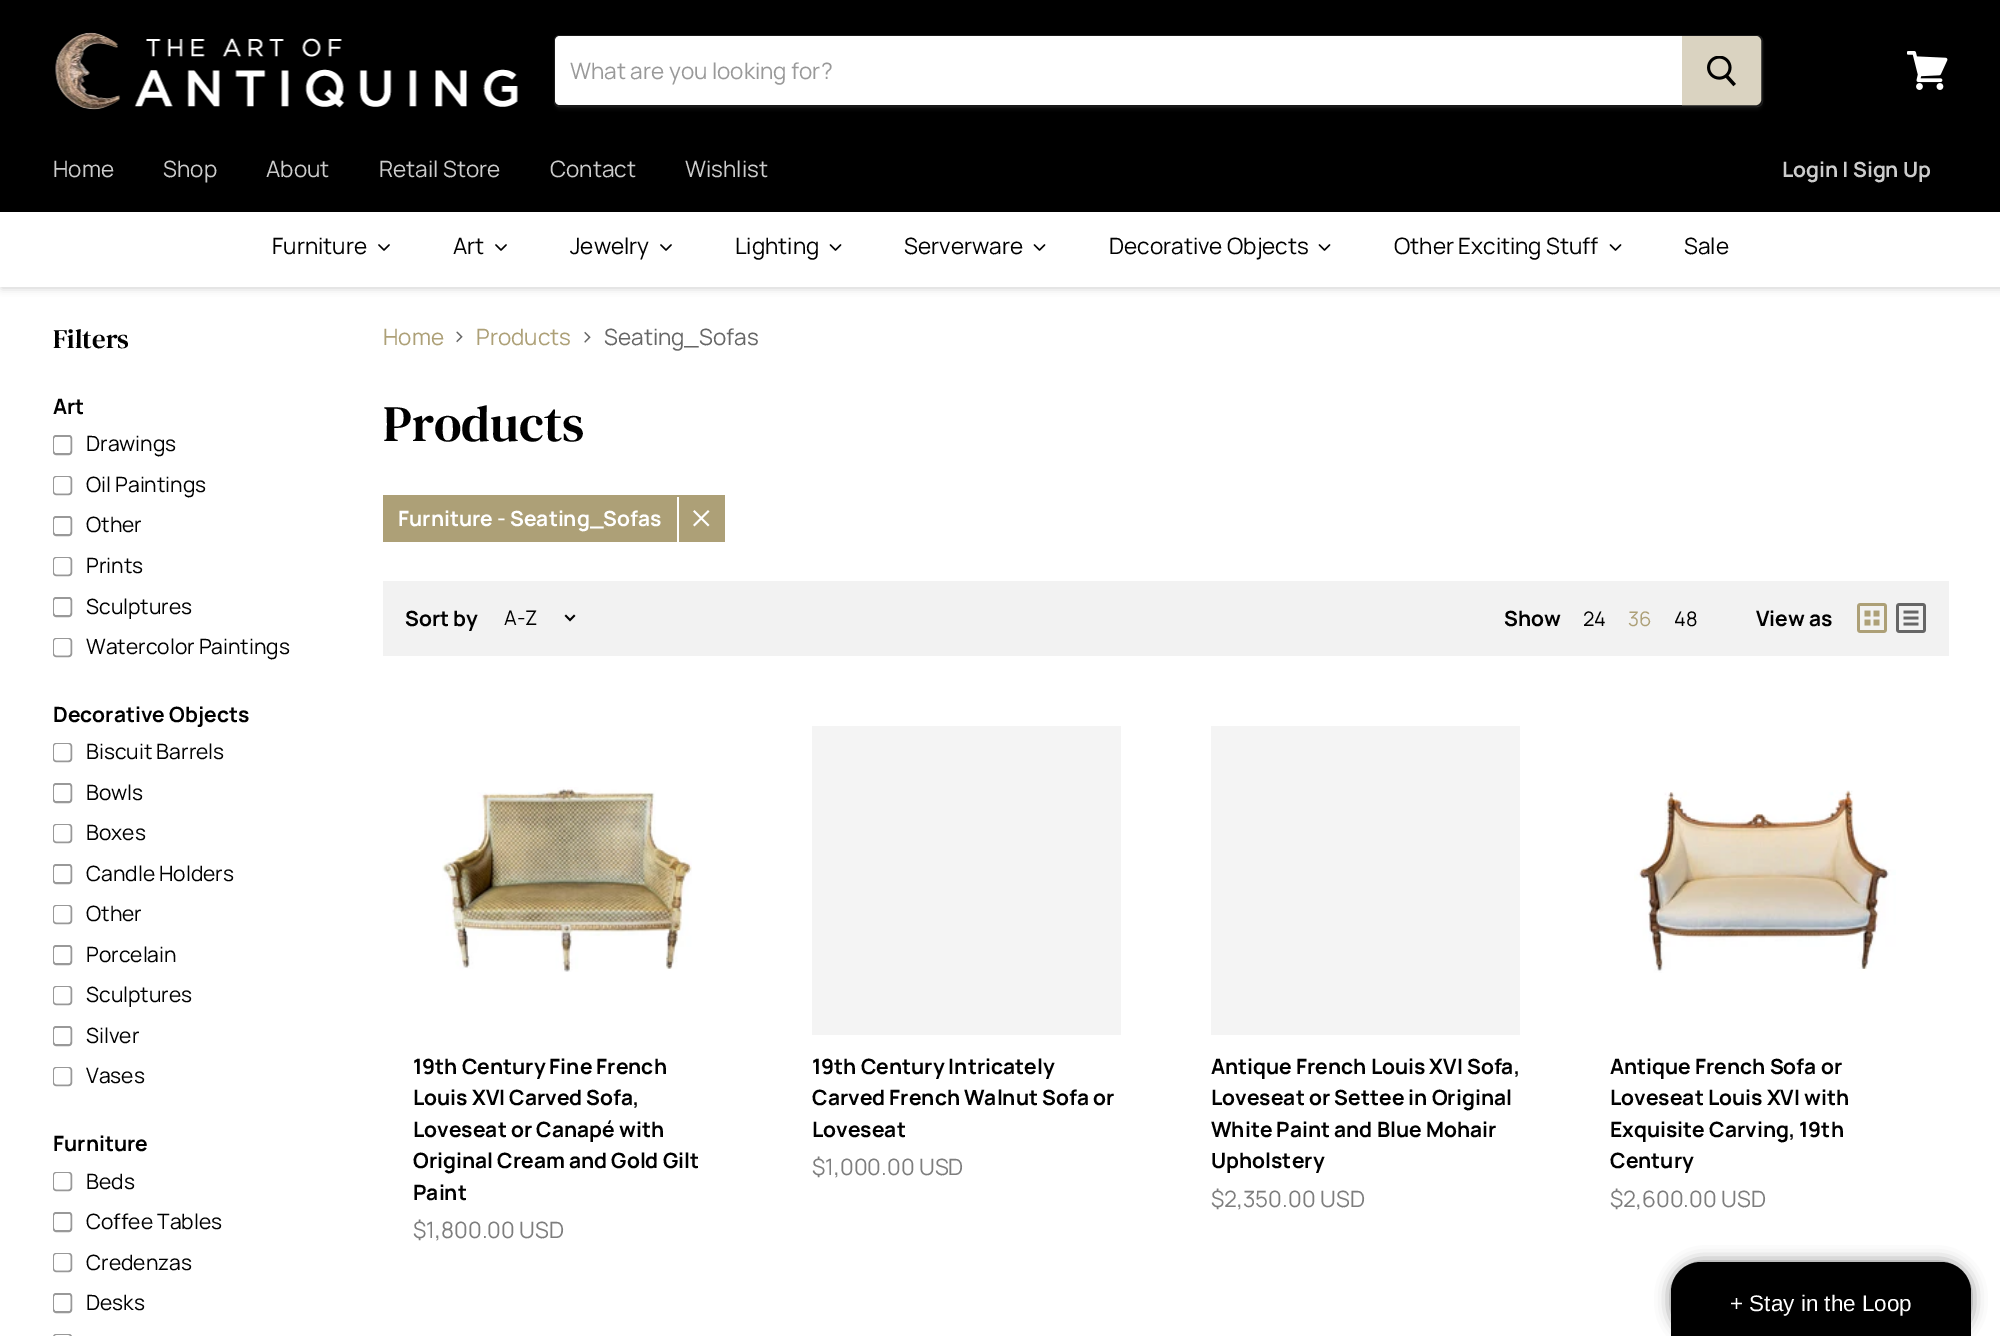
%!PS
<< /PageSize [2000 1336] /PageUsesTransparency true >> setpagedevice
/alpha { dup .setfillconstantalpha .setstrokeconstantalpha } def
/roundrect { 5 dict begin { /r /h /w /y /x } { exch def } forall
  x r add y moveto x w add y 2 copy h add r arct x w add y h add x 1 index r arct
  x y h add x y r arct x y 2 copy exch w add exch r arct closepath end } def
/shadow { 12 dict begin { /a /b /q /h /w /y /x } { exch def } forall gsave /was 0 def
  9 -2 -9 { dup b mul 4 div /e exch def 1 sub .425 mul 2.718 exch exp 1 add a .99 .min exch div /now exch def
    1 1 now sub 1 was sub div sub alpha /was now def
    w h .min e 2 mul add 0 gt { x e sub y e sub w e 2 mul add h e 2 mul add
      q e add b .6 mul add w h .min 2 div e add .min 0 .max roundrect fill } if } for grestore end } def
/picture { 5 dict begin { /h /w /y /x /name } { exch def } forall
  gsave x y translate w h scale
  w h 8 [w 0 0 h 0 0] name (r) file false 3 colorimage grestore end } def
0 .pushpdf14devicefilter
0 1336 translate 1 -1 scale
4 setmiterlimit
1 setgray
0 0 2000 1336 rectfill
0 setgray
0 0 2000 212 rectfill
(img1.rgb) 55 32 463 78 picture
gsave
newpath 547 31 moveto 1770 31 lineto 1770 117 lineto 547 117 lineto closepath 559 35 moveto 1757 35 lineto 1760.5 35 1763 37.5 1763 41 curveto 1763 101 lineto 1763 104.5 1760.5 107 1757 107 curveto 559 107 lineto 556 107 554 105 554 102 curveto 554 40 lineto 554 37 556 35 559 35 curveto closepath eoclip newpath
0.498 setgray
554 38 1209 72 6 2 0.11 shadow
grestore
0.2 alpha
0.498 setgray
2 setlinewidth
newpath 559 36 moveto 1757 36 lineto 1760 36 1762 38 1762 41 curveto 1762 101 lineto 1762 104 1760 106 1757 106 curveto 559 106 lineto 557 106 555 104 555 102 curveto 555 40 lineto 555 38 557 36 559 36 curveto closepath stroke
1 alpha
1 setgray
newpath 560 36 moveto 1682 36 lineto 1682 105 lineto 560 105 lineto 557 105 555 103 555 100 curveto 555 41 lineto 555 38 557 36 560 36 curveto closepath fill
/Manrope-Regular [22.5 0 0 -22.5 0 0] selectfont
0.6 setgray
570 79 moveto (What are you looking for?) show
0.855 0.827 0.757 setrgbcolor
newpath 1683 37 moveto 1756 37 lineto 1758 37 1760 39 1760 41 curveto 1760 100 lineto 1760 102 1758 104 1756 104 curveto 1683 104 lineto closepath gsave fill grestore
stroke
(img2.rgb) 1707 56 29 31 picture
(img3.rgb) 1907 51 41 39 picture
0.8 setgray
53 177 moveto (Home) show
163 177 moveto (Shop) show
266 177 moveto (About) show
379 177 moveto (Retail Store) show
550 177 moveto (Contact) show
685 177 moveto (Wishlist) show
/Manrope-Bold [21 0 0 -21 0 0] selectfont
1782 177 moveto (Login | Sign Up) show
0 setgray
2 213 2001 75 0 4 0.2 shadow
1 setgray
0 212 2000 75 rectfill
/Manrope-Regular [22.5 0 0 -22.5 0 0] selectfont
0 setgray
272 254 moveto (Furniture) show
(img4.rgb) 378 244 12 7 picture
453 254 moveto (Art) show
(img4.rgb) 495 244 12 7 picture
570 254 moveto (Jewelry) show
(img4.rgb) 660 244 12 7 picture
735 254 moveto (Lighting) show
(img5.rgb) 829 244 13 7 picture
904 254 moveto (Serverware) show
(img5.rgb) 1033 244 13 7 picture
1109 254 moveto (Decorative Objects) show
(img5.rgb) 1318 244 13 7 picture
1394 254 moveto (Other Exciting Stuff) show
(img5.rgb) 1609 244 13 7 picture
1684 254 moveto (Sale) show
1671 1262 300 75 30 7.5 0.5 shadow
newpath 1701 1262 moveto 1941 1262 lineto 1957.5 1262 1971 1275.5 1971 1292 curveto 1971 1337 lineto 1671 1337 lineto 1671 1292 lineto 1671 1275.5 1684.5 1262 1701 1262 curveto closepath fill
/LiberationSans-Regular [22.5 0 0 -22.5 0 0] selectfont
1 setgray
1730 1311 moveto (+ Stay in the Loop) show
/DMSerifText-Regular [27 0 0 -27 0 0] selectfont
0 setgray
53 348 moveto (Filters) show
/Manrope-Bold [21 0 0 -21 0 0] selectfont
53 414 moveto (Art) show
0.6 setgray
54 436 17 18 2 roundrect stroke
(img6.rgb) 54 437 17 16 picture
/Manrope-Regular [21 0 0 -21 0 0] selectfont
0 setgray
86 451 moveto (Drawings) show
0.6 setgray
54 477 17 17 2 roundrect stroke
(img7.rgb) 54 477 17 17 picture
0 setgray
86 492 moveto (Oil Paintings) show
0.6 setgray
54 517 17 18 2 roundrect stroke
(img6.rgb) 54 518 17 16 picture
0 setgray
86 532 moveto (Other) show
0.6 setgray
54 558 17 17 2 roundrect stroke
(img7.rgb) 54 558 17 17 picture
0 setgray
86 573 moveto (Prints) show
0.6 setgray
54 598 17 18 2 roundrect stroke
(img6.rgb) 54 599 17 16 picture
0 setgray
86 614 moveto (Sculptures) show
0.6 setgray
54 639 17 17 2 roundrect stroke
(img7.rgb) 54 639 17 17 picture
0 setgray
86 654 moveto (Watercolor Paintings) show
/Manrope-Bold [21 0 0 -21 0 0] selectfont
53 722 moveto (Decorative Objects) show
0.6 setgray
54 744 17 17 2 roundrect stroke
(img7.rgb) 54 744 17 17 picture
/Manrope-Regular [21 0 0 -21 0 0] selectfont
0 setgray
86 759 moveto (Biscuit Barrels) show
0.6 setgray
54 784 17 18 2 roundrect stroke
(img6.rgb) 54 785 17 16 picture
0 setgray
86 800 moveto (Bowls) show
0.6 setgray
54 825 17 17 2 roundrect stroke
(img7.rgb) 54 825 17 17 picture
0 setgray
86 840 moveto (Boxes) show
0.6 setgray
54 865 17 18 2 roundrect stroke
(img6.rgb) 54 866 17 16 picture
0 setgray
86 881 moveto (Candle Holders) show
0.6 setgray
54 906 17 17 2 roundrect stroke
(img7.rgb) 54 906 17 17 picture
0 setgray
86 921 moveto (Other) show
0.6 setgray
54 946 17 18 2 roundrect stroke
(img6.rgb) 54 947 17 16 picture
0 setgray
86 962 moveto (Porcelain) show
0.6 setgray
54 987 17 17 2 roundrect stroke
(img7.rgb) 54 987 17 17 picture
0 setgray
86 1002 moveto (Sculptures) show
0.6 setgray
54 1027 17 18 2 roundrect stroke
(img6.rgb) 54 1028 17 16 picture
0 setgray
86 1043 moveto (Silver) show
0.6 setgray
54 1068 17 17 2 roundrect stroke
(img7.rgb) 54 1068 17 17 picture
0 setgray
86 1083 moveto (Vases) show
/Manrope-Bold [21 0 0 -21 0 0] selectfont
53 1151 moveto (Furniture) show
0.6 setgray
54 1173 17 17 2 roundrect stroke
(img7.rgb) 54 1173 17 17 picture
/Manrope-Regular [21 0 0 -21 0 0] selectfont
0 setgray
86 1189 moveto (Beds) show
0.6 setgray
54 1213 17 18 2 roundrect stroke
(img6.rgb) 54 1214 17 16 picture
0 setgray
86 1229 moveto (Coffee Tables) show
0.6 setgray
54 1254 17 17 2 roundrect stroke
(img7.rgb) 54 1254 17 17 picture
0 setgray
86 1270 moveto (Credenzas) show
0.6 setgray
54 1294 17 18 2 roundrect stroke
(img6.rgb) 54 1295 17 16 picture
0 setgray
86 1310 moveto (Desks) show
0.6 setgray
54 1335 17 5 2 roundrect stroke
(img8.rgb) 54 1335 16 1 picture
/Manrope-Regular [22.5 0 0 -22.5 0 0] selectfont
0.678 0.627 0.467 setrgbcolor
383 345 moveto (Home) show
(img9.rgb) 456 331 7 12 picture
476 345 moveto (Products) show
(img10.rgb) 584 331 7 12 picture
0.4 setgray
604 345 moveto (Seating_Sofas) show
/DMSerifText-Regular [51 0 0 -51 0 0] selectfont
0 setgray
383 441 moveto (Products) show
0.678 0.627 0.467 setrgbcolor
383 495 342 47 rectfill
1 setgray
677 497 2 45 rectfill
/Manrope-Bold [21 0 0 -21 0 0] selectfont
398 526 moveto (Furniture - Seating_Sofas) show
(img11.rgb) 693 510 17 17 picture
0.949 setgray
383 581 1566 75 rectfill
0 setgray
405 626 moveto (Sort by) show
/Manrope-Regular [20 0 0 -20 0 0] selectfont
504 625 moveto (A-Z) show
(img12.rgb) 564 614 12 8 picture
/Manrope-Bold [21 0 0 -21 0 0] selectfont
1504 626 moveto (Show) show
/Manrope-Regular [20 0 0 -20 0 0] selectfont
1583 626 moveto (24) show
0.678 0.627 0.467 setrgbcolor
1628 626 moveto (36) show
0 setgray
1674 626 moveto (48) show
/Manrope-Bold [21 0 0 -21 0 0] selectfont
1756 626 moveto (View as) show
(img13.rgb) 1857 603 30 30 picture
(img14.rgb) 1896 603 30 30 picture
(img15.rgb) 442 787 250 185 picture
413 1074 moveto (19th Century Fine French) show
413 1105 moveto (Louis XVI Carved Sofa,) show
413 1137 moveto (Loveseat or Canapé with) show
413 1168 moveto (Original Cream and Gold Gilt) show
413 1200 moveto (Paint) show
/Manrope-Regular [22.5 0 0 -22.5 0 0] selectfont
0.49 setgray
413 1238 moveto ($1,800.00 USD) show
0.957 setgray
812 726 309 309 rectfill
/Manrope-Bold [21 0 0 -21 0 0] selectfont
0 setgray
812 1074 moveto (19th Century Intricately) show
812 1105 moveto (Carved French Walnut Sofa or) show
812 1137 moveto (Loveseat) show
/Manrope-Regular [22.5 0 0 -22.5 0 0] selectfont
0.49 setgray
812 1175 moveto ($1,000.00 USD) show
0.957 setgray
1211 726 309 309 rectfill
/Manrope-Bold [21 0 0 -21 0 0] selectfont
0 setgray
1211 1074 moveto (Antique French Louis XVI Sofa,) show
1211 1105 moveto (Loveseat or Settee in Original) show
1211 1137 moveto (White Paint and Blue Mohair) show
1211 1168 moveto (Upholstery) show
/Manrope-Regular [22.5 0 0 -22.5 0 0] selectfont
0.49 setgray
1211 1207 moveto ($2,350.00 USD) show
(img16.rgb) 1634 790 262 183 picture
/Manrope-Bold [21 0 0 -21 0 0] selectfont
0 setgray
1610 1074 moveto (Antique French Sofa or) show
1610 1105 moveto (Loveseat Louis XVI with) show
1610 1137 moveto (Exquisite Carving, 19th) show
1610 1168 moveto (Century) show
/Manrope-Regular [22.5 0 0 -22.5 0 0] selectfont
0.49 setgray
1610 1207 moveto ($2,600.00 USD) show
.poppdf14devicefilter showpage
